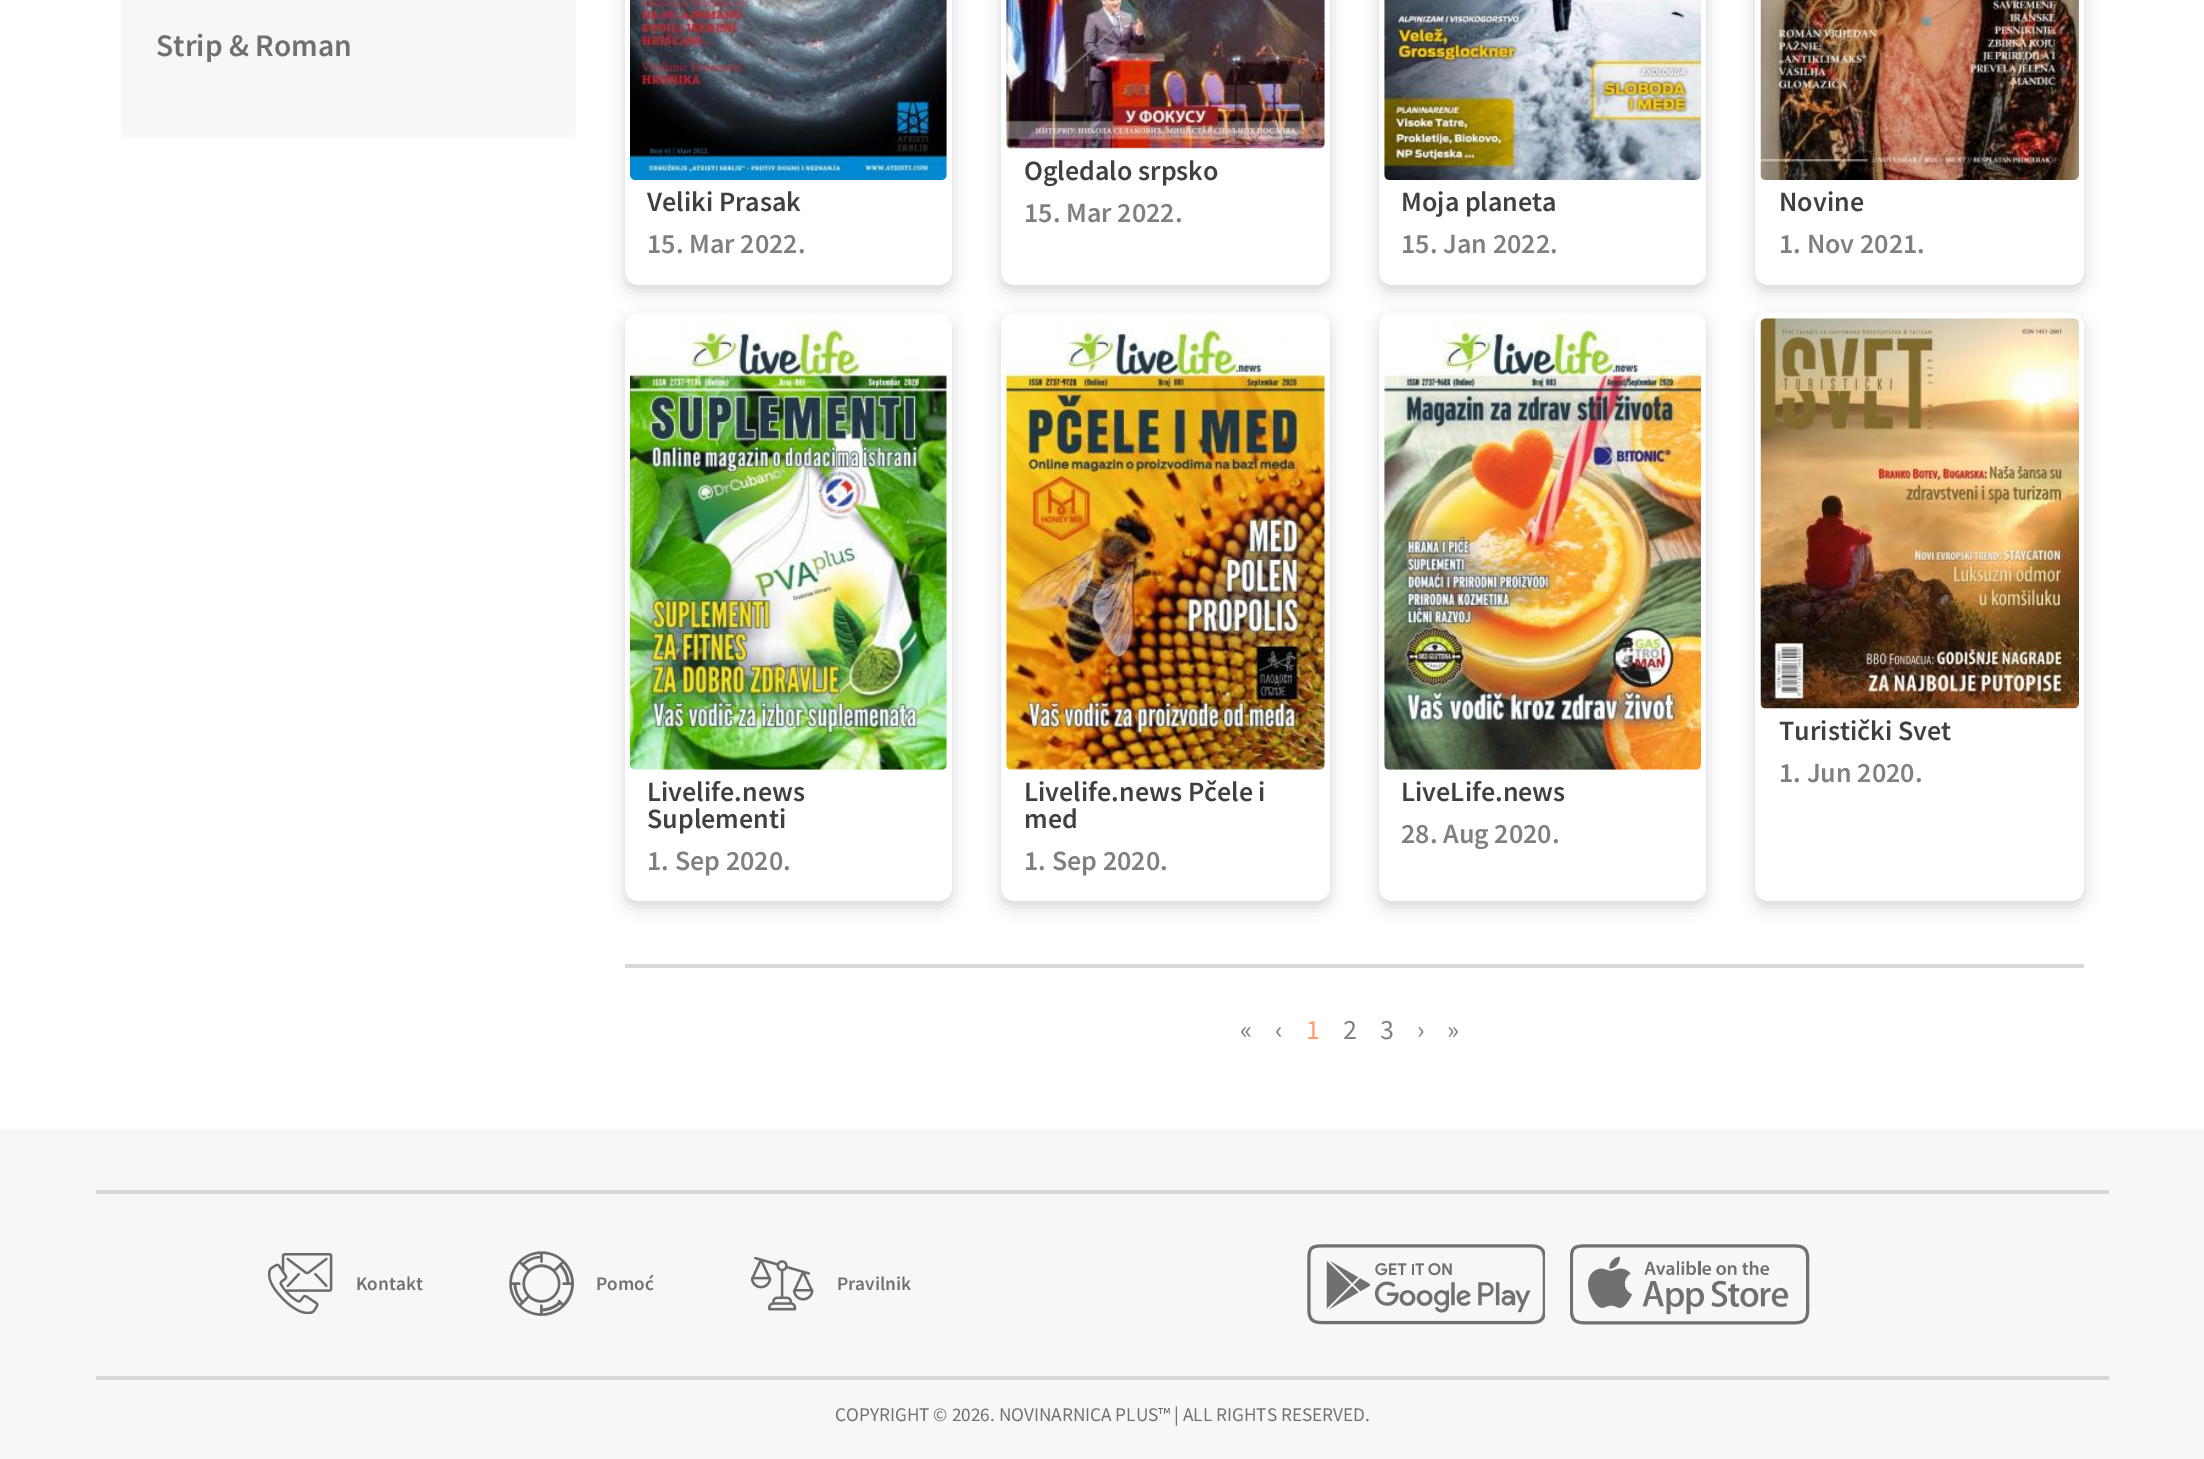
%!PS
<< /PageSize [2204 1459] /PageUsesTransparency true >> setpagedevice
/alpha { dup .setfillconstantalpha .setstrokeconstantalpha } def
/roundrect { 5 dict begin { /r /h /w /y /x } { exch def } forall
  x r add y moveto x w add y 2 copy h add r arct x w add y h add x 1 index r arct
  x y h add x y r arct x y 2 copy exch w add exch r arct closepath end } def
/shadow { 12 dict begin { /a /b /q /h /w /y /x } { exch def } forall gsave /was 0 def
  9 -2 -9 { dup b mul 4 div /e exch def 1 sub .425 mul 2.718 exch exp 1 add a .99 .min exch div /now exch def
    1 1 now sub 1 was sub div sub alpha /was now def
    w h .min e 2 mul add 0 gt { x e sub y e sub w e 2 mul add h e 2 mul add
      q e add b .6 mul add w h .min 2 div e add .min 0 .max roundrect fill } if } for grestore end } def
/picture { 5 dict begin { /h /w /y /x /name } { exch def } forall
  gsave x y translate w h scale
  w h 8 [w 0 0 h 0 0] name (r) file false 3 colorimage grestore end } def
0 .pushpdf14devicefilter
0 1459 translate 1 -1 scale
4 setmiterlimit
1 setgray
0 0 2204 1459 rectfill
0.969 setgray
121 -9 455 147 9 roundrect fill
/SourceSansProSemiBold-SemiBold [31.5 0 0 -31.5 0 0] selectfont
0.439 setgray
156 56 moveto (Strip & Roman) show
gsave
newpath 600 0 moveto 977 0 lineto 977 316 lineto 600 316 lineto closepath 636 -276 moveto 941 -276 lineto 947 -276 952 -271 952 -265 curveto 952 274 lineto 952 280 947 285 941 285 curveto 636 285 lineto 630 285 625 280 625 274 curveto 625 -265 lineto 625 -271 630 -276 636 -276 curveto closepath eoclip newpath
0 setgray
625 -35 327 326 11 8 0.16 shadow
grestore
(img1.rgb) 630 0 317 180 picture
/SourceSansProSemiBold-SemiBold [28 0 0 -28 0 0] selectfont
0.251 0.251 0.255 setrgbcolor
647 211 moveto (Veliki Prasak) show
0.502 setgray
647 253 moveto (15. Mar 2022.) show
gsave
newpath 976 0 moveto 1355 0 lineto 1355 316 lineto 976 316 lineto closepath 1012 -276 moveto 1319 -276 lineto 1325 -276 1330 -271 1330 -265 curveto 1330 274 lineto 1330 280 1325 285 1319 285 curveto 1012 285 lineto 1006 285 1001 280 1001 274 curveto 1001 -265 lineto 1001 -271 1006 -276 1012 -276 curveto closepath eoclip newpath
0 setgray
1001 -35 329 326 11 8 0.16 shadow
grestore
(img2.rgb) 1006 0 319 149 picture
0.251 0.251 0.255 setrgbcolor
1024 180 moveto (Ogledalo srpsko) show
0.502 setgray
1024 222 moveto (15. Mar 2022.) show
gsave
newpath 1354 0 moveto 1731 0 lineto 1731 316 lineto 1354 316 lineto closepath 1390 -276 moveto 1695 -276 lineto 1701 -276 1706 -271 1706 -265 curveto 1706 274 lineto 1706 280 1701 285 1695 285 curveto 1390 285 lineto 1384 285 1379 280 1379 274 curveto 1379 -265 lineto 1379 -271 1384 -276 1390 -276 curveto closepath eoclip newpath
0 setgray
1379 -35 327 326 11 8 0.16 shadow
grestore
(img3.rgb) 1384 0 317 180 picture
0.251 0.251 0.255 setrgbcolor
1401 211 moveto (Moja planeta) show
0.502 setgray
1401 253 moveto (15. Jan 2022.) show
gsave
newpath 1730 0 moveto 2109 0 lineto 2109 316 lineto 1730 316 lineto closepath 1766 -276 moveto 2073 -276 lineto 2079 -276 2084 -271 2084 -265 curveto 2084 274 lineto 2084 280 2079 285 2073 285 curveto 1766 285 lineto 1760 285 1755 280 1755 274 curveto 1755 -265 lineto 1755 -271 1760 -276 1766 -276 curveto closepath eoclip newpath
0 setgray
1755 -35 329 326 11 8 0.16 shadow
grestore
(img4.rgb) 1760 0 319 180 picture
0.251 0.251 0.255 setrgbcolor
1779 211 moveto (Novine) show
0.502 setgray
1779 253 moveto (1. Nov 2021.) show
gsave
newpath 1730 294 moveto 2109 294 lineto 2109 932 lineto 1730 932 lineto closepath 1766 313 moveto 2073 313 lineto 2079 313 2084 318 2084 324 curveto 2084 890 lineto 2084 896 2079 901 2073 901 curveto 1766 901 lineto 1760 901 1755 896 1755 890 curveto 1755 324 lineto 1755 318 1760 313 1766 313 curveto closepath eoclip newpath
0 setgray
1755 319 329 588 11 8 0.16 shadow
grestore
(img5.rgb) 1760 318 319 391 picture
0.251 0.251 0.255 setrgbcolor
1779 740 moveto (Turistički Svet) show
0.502 setgray
1779 782 moveto (1. Jun 2020.) show
gsave
newpath 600 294 moveto 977 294 lineto 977 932 lineto 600 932 lineto closepath 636 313 moveto 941 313 lineto 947 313 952 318 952 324 curveto 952 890 lineto 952 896 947 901 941 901 curveto 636 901 lineto 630 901 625 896 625 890 curveto 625 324 lineto 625 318 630 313 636 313 curveto closepath eoclip newpath
0 setgray
625 319 327 588 11 8 0.16 shadow
grestore
(img6.rgb) 630 318 317 452 picture
0.251 0.251 0.255 setrgbcolor
647 801 moveto (Livelife.news) show
647 828 moveto (Suplementi) show
0.502 setgray
647 870 moveto (1. Sep 2020.) show
gsave
newpath 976 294 moveto 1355 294 lineto 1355 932 lineto 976 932 lineto closepath 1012 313 moveto 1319 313 lineto 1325 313 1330 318 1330 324 curveto 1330 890 lineto 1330 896 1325 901 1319 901 curveto 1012 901 lineto 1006 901 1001 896 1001 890 curveto 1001 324 lineto 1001 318 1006 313 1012 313 curveto closepath eoclip newpath
0 setgray
1001 319 329 588 11 8 0.16 shadow
grestore
(img7.rgb) 1006 318 319 452 picture
0.251 0.251 0.255 setrgbcolor
1024 801 moveto (Livelife.news Pčele i) show
1024 828 moveto (med) show
0.502 setgray
1024 870 moveto (1. Sep 2020.) show
gsave
newpath 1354 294 moveto 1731 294 lineto 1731 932 lineto 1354 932 lineto closepath 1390 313 moveto 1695 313 lineto 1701 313 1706 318 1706 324 curveto 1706 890 lineto 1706 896 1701 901 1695 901 curveto 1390 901 lineto 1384 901 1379 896 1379 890 curveto 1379 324 lineto 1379 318 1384 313 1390 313 curveto closepath eoclip newpath
0 setgray
1379 319 327 588 11 8 0.16 shadow
grestore
(img8.rgb) 1384 318 317 452 picture
0.251 0.251 0.255 setrgbcolor
1401 801 moveto (LiveLife.news) show
0.502 setgray
1401 843 moveto (28. Aug 2020.) show
0.847 setgray
625 964 1459 4 rectfill
/SourceSansPro-Regular [28 0 0 -28 0 0] selectfont
0.502 setgray
1240 1039 moveto («) show
1275 1039 moveto (‹) show
1 0.612 0.424 setrgbcolor
1306 1039 moveto (1) show
0.502 setgray
1343 1039 moveto (2) show
1380 1039 moveto (3) show
1417 1039 moveto (›) show
1447 1039 moveto (») show
0.969 setgray
0 1129 2204 330 rectfill
0.847 setgray
96 1190 2013 4 rectfill
96 1376 2013 4 rectfill
(img9.rgb) 268 1253 65 61 picture
/SourceSansProSemiBold-SemiBold [19.25 0 0 -19.25 0 0] selectfont
0.439 setgray
356 1290 moveto (Kontakt) show
(img10.rgb) 509 1251 65 65 picture
596 1290 moveto (Pomoć) show
(img11.rgb) 751 1257 63 54 picture
837 1290 moveto (Pravilnik) show
(img12.rgb) 1307 1244 238 81 picture
(img13.rgb) 1570 1244 240 81 picture
/SourceSansPro-Regular [19.25 0 0 -19.25 0 0] selectfont
835 1421 moveto (COPYRIGHT © 2026. NOVINARNICA PLUS™ | ALL RIGHTS RESERVED.) show
.poppdf14devicefilter showpage
